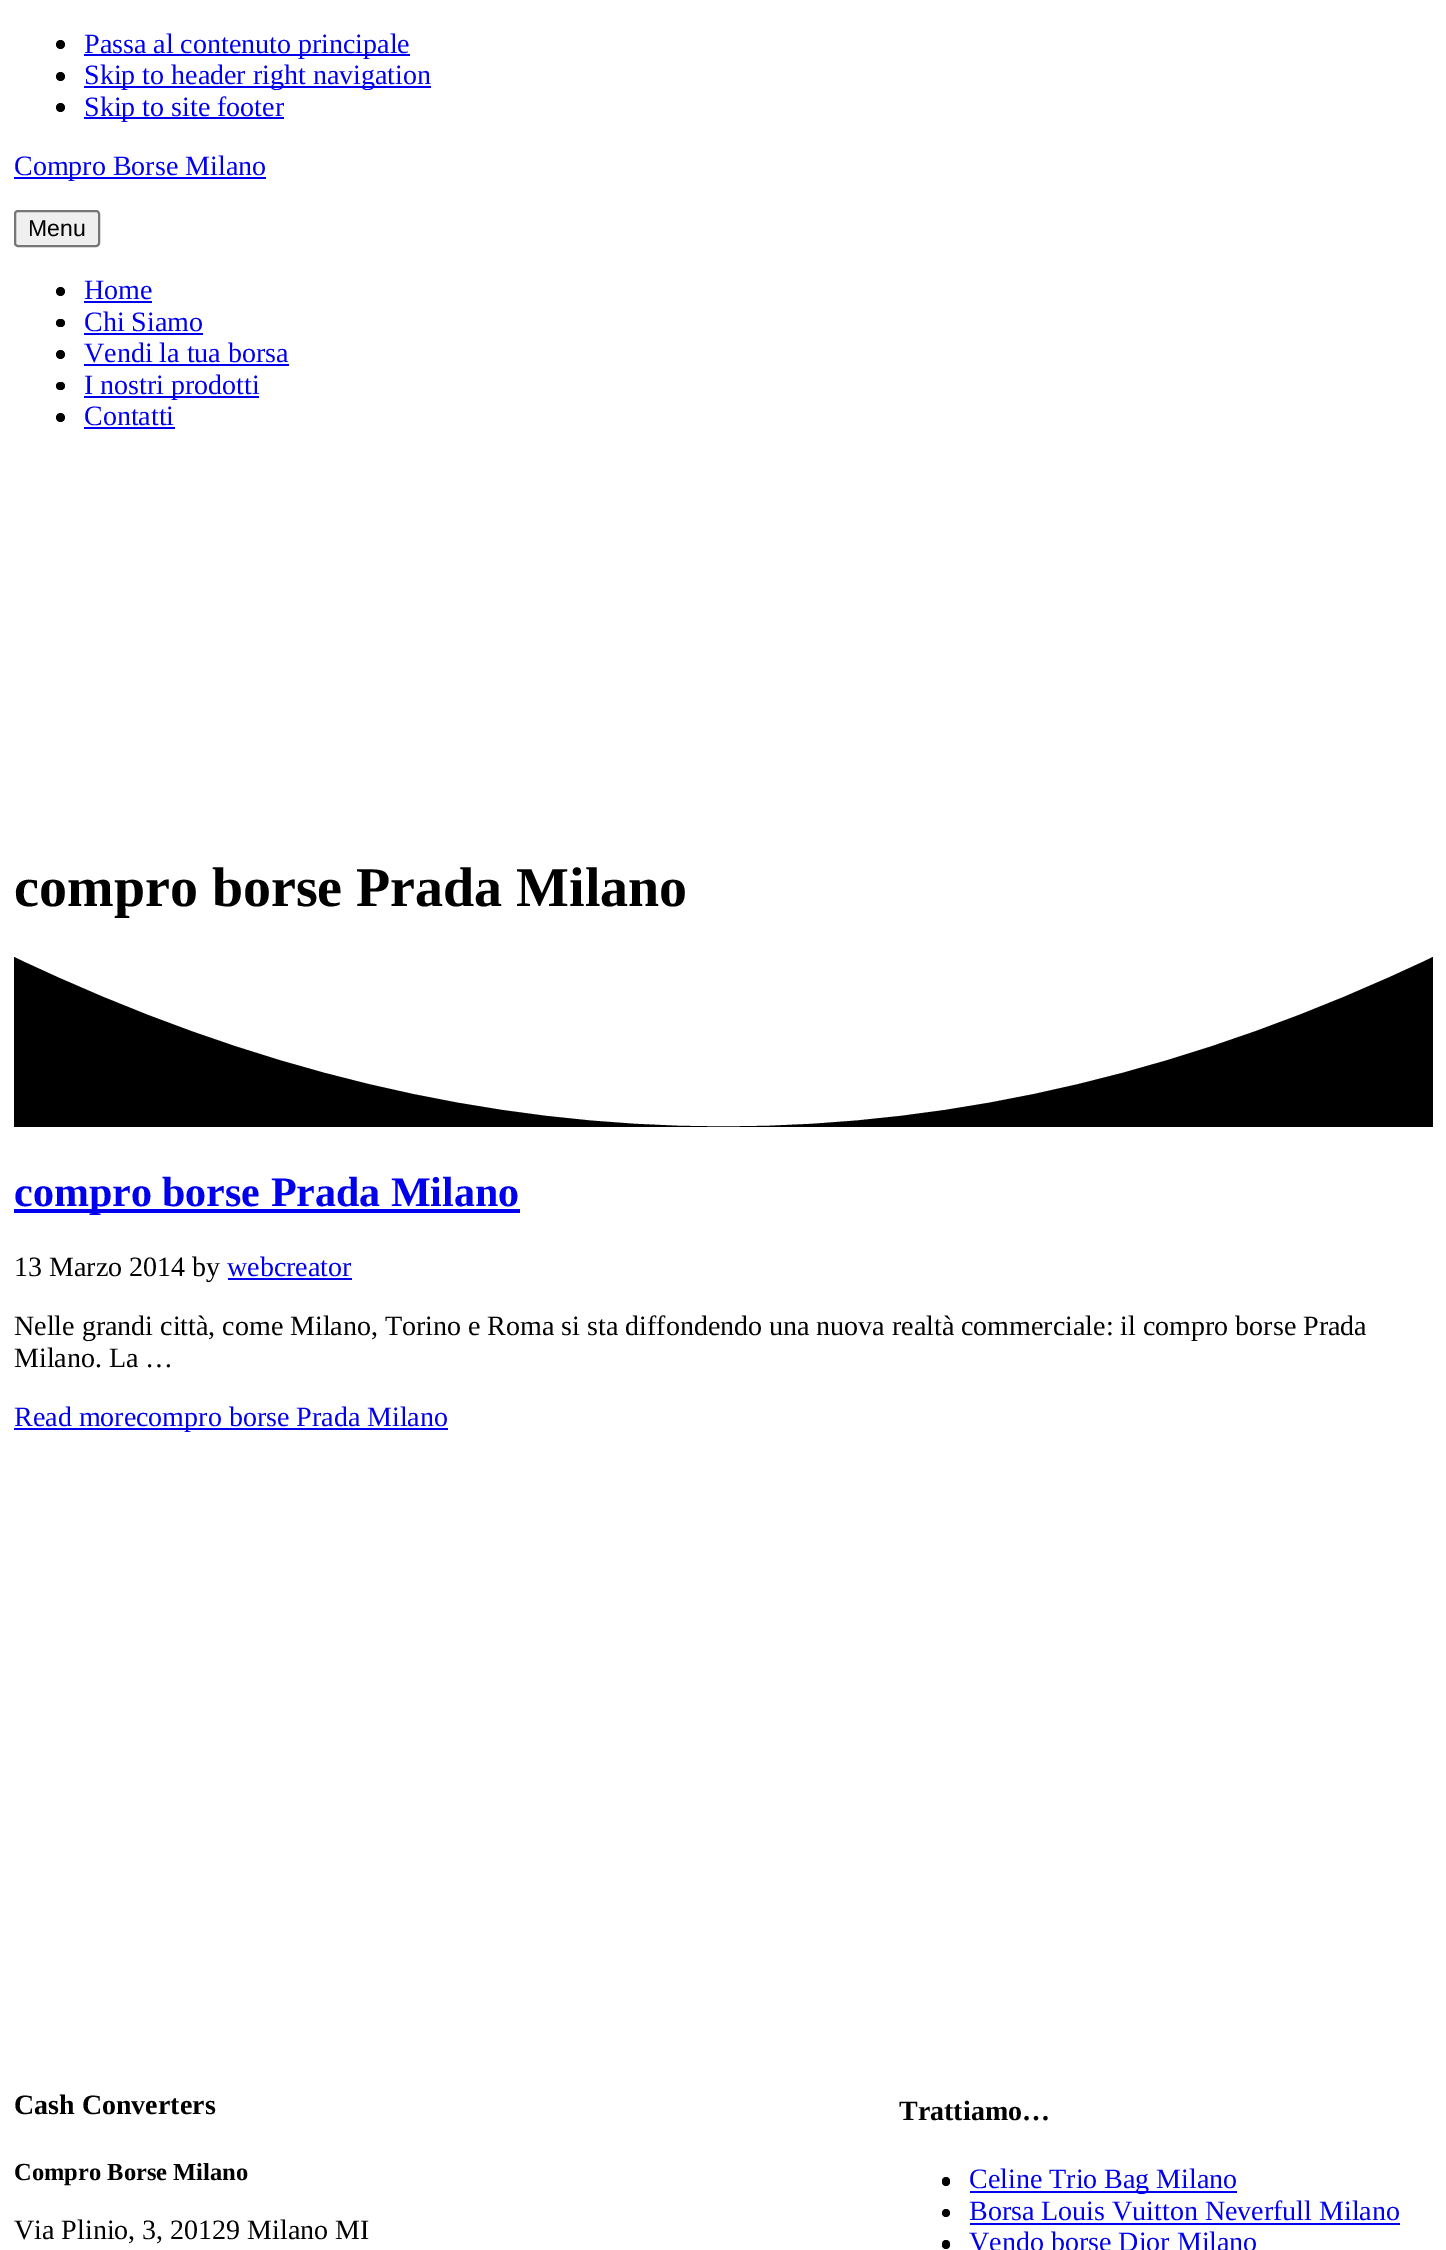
%!PS
<< /PageSize [1446 2250] >> setpagedevice
/roundrect { 5 dict begin { /r /h /w /y /x } { exch def } forall
  x r add y moveto x w add y 2 copy h add r arct x w add y h add x 1 index r arct
  x y h add x y r arct x y 2 copy exch w add exch r arct closepath end } def
0 2250 translate 1 -1 scale
4 setmiterlimit
1 setgray
0 0 1446 2250 rectfill
0 setgray
newpath 60.5 44.5 4.5 0 360 arc closepath fill
0 0 0.933 setrgbcolor
84 54 326 2 rectfill
/LiberationSerif-Regular [28 0 0 -28 0 0] selectfont
84 53 moveto (Passa al contenuto principale) show
0 setgray
newpath 60.5 76.5 4.5 0 360 arc closepath fill
0 0 0.933 setrgbcolor
84 86 347 2 rectfill
84 84 moveto (Skip to header right navigation) show
0 setgray
newpath 60.5 107.5 4.5 0 360 arc closepath fill
0 0 0.933 setrgbcolor
84 117 200 2 rectfill
84 116 moveto (Skip to site footer) show
14 177 252 2 rectfill
14 175 moveto (Compro Borse Milano) show
0.937 setgray
15 211 84 35 3 roundrect gsave fill grestore
0.463 setgray
2 setlinewidth
stroke
/LiberationSans-Regular [23 0 0 -23 0 0] selectfont
0 setgray
28 236 moveto (Menu) show
newpath 60.5 291.5 4.5 0 360 arc closepath fill
/LiberationSerif-Regular [28 0 0 -28 0 0] selectfont
0 0 0.933 setrgbcolor
84 299 moveto (Home) show
84 301 68 2 rectfill
0 setgray
56 319 9 8 4 roundrect fill
0 0 0.933 setrgbcolor
84 331 moveto (Chi Siamo) show
84 333 119 2 rectfill
0 setgray
newpath 60.5 354.5 4.5 0 360 arc closepath fill
0 0 0.933 setrgbcolor
84 362 moveto (Vendi la tua borsa) show
84 364 205 2 rectfill
0 setgray
56 382 9 8 4 roundrect fill
0 0 0.933 setrgbcolor
84 396 175 2 rectfill
84 394 moveto (I nostri prodotti) show
0 setgray
newpath 60.5 417.5 4.5 0 360 arc closepath fill
0 0 0.933 setrgbcolor
84 425 moveto (Contatti) show
84 427 91 2 rectfill
/LiberationSerif-Bold [56 0 0 -56 0 0] selectfont
0 setgray
14 906 moveto (compro borse Prada Milano) show
gsave
14 957 1419 170 rectclip
newpath 14 957 moveto 487 1183 960 1183 1433 957 curveto 1433 1128 lineto 14 1128 lineto closepath fill
grestore
0 0 0.933 setrgbcolor
14 1209 506 4 rectfill
/LiberationSerif-Bold [42 0 0 -42 0 0] selectfont
14 1206 moveto (compro borse Prada Milano) show
/LiberationSerif-Regular [28 0 0 -28 0 0] selectfont
0 setgray
14 1276 moveto (13 Marzo 2014 by) show
0 0 0.933 setrgbcolor
227 1276 moveto (webcreator) show
228 1278 124 2 rectfill
0 setgray
14 1335 moveto (Nelle grandi città, come Milano, Torino e Roma si sta diffondendo una nuova realtà commerciale: il compro borse Prada) show
14 1367 moveto (Milano. La …) show
0 0 0.933 setrgbcolor
14 1428 434 2 rectfill
14 1426 moveto (Read morecompro borse Prada Milano) show
/LiberationSerif-Bold [28 0 0 -28 0 0] selectfont
0 setgray
14 2114 moveto (Cash Converters) show
/LiberationSerif-Bold [24.5 0 0 -24.5 0 0] selectfont
14 2180 moveto (Compro Borse Milano) show
/LiberationSerif-Regular [28 0 0 -28 0 0] selectfont
14 2239 moveto (Via Plinio, 3, 20129 Milano MI) show
/LiberationSerif-Bold [28 0 0 -28 0 0] selectfont
899 2120 moveto (Trattiamo…) show
942 2177 8 9 4 roundrect fill
0 0 0.933 setrgbcolor
970 2191 267 2 rectfill
/LiberationSerif-Regular [28 0 0 -28 0 0] selectfont
969 2188 moveto (Celine Trio Bag Milano) show
0 setgray
newpath 946 2213 4 0 360 arc closepath fill
0 0 0.933 setrgbcolor
969 2220 moveto (Borsa Louis Vuitton Neverfull Milano) show
970 2223 430 2 rectfill
0 setgray
942 2240 8 9 4 roundrect fill
0 0 0.933 setrgbcolor
969 2251 moveto (Vendo borse Dior Milano) show
showpage
